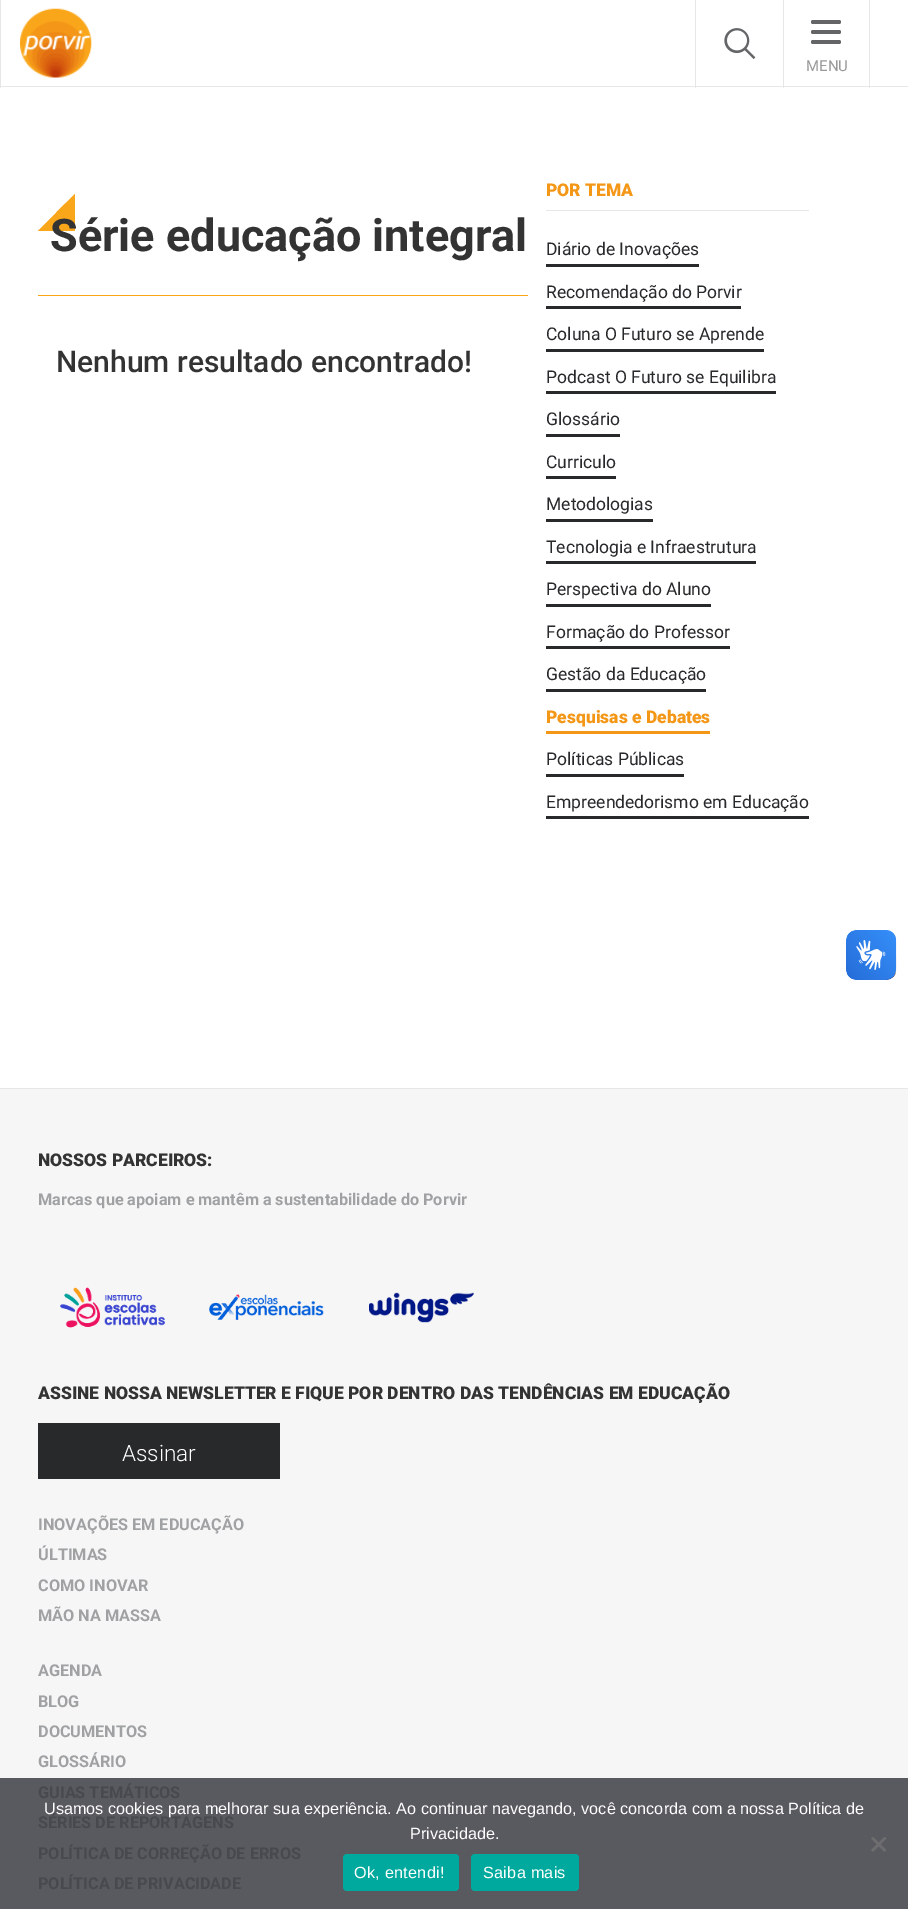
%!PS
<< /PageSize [908 1909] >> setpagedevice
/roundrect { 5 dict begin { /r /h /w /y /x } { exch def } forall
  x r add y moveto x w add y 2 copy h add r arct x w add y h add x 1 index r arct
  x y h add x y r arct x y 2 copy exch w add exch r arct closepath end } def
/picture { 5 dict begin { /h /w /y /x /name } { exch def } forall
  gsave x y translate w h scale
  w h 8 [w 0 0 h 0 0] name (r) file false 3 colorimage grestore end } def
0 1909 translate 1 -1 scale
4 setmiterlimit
1 setgray
0 0 908 1909 rectfill
0.906 setgray
0 86 908 1 rectfill
0 0 1 88 rectfill
(img1.rgb) 20 8 72 70 picture
(img2.rgb) 724 28 32 31 picture
695 0 1 88 rectfill
869 0 1 88 rectfill
783 0 1 88 rectfill
0.392 0.396 0.404 setrgbcolor
811 20 30 4 2 roundrect fill
811 30 30 4 2 roundrect fill
811 40 30 4 2 roundrect fill
/Roboto-Regular [15 0 0 -15 0 0] selectfont
0.6 setgray
806 71 moveto (MENU) show
0.98 0.651 0.102 setrgbcolor
newpath 75 194 moveto 75 231 lineto 56 212.5 lineto closepath fill
newpath 75 231 moveto 37.5 231 lineto 56 212.5 lineto closepath fill
1 setgray
newpath 37.5 231 moveto 37.5 194 lineto 56 212.5 lineto closepath fill
/Roboto-Bold [45 0 0 -45 0 0] selectfont
0.2 setgray
50 251 moveto (Série educação integral) show
0.98 0.651 0.098 setrgbcolor
38 295 490 1 rectfill
/Roboto-Medium [30 0 0 -30 0 0] selectfont
0.2 setgray
56 372 moveto (Nenhum resultado encontrado!) show
0.902 0.906 0.914 setrgbcolor
546 210 263 1 rectfill
/Roboto-Black [17.5 0 0 -17.5 0 0] selectfont
0.957 0.592 0.09 setrgbcolor
546 196 moveto (POR TEMA) show
0.157 0.161 0.169 setrgbcolor
546 264 153 3 rectfill
/Roboto-Regular [17.5 0 0 -17.5 0 0] selectfont
546 255 moveto (Diário de Inovações) show
546 306 195 3 rectfill
546 298 moveto (Recomendação do Porvir) show
546 349 218 3 rectfill
546 340 moveto (Coluna O Futuro se Aprende) show
546 391 230 3 rectfill
546 383 moveto (Podcast O Futuro se Equilibra) show
546 434 74 3 rectfill
546 425 moveto (Glossário) show
546 476 70 3 rectfill
546 468 moveto (Curriculo) show
546 519 107 3 rectfill
546 510 moveto (Metodologias) show
546 561 210 3 rectfill
546 553 moveto (Tecnologia e Infraestrutura) show
546 604 165 3 rectfill
546 595 moveto (Perspectiva do Aluno) show
546 646 184 3 rectfill
546 638 moveto (Formação do Professor) show
546 689 160 3 rectfill
546 680 moveto (Gestão da Educação) show
0.957 0.592 0.09 setrgbcolor
546 731 164 3 rectfill
/Roboto-Black [17.5 0 0 -17.5 0 0] selectfont
546 723 moveto (Pesquisas e Debates) show
0.157 0.161 0.169 setrgbcolor
546 774 138 3 rectfill
/Roboto-Regular [17.5 0 0 -17.5 0 0] selectfont
546 765 moveto (Políticas Públicas) show
546 816 263 3 rectfill
546 808 moveto (Empreendedorismo em Educação) show
(img3.rgb) 846 930 51 50 picture
(img4.rgb) 846 930 50 50 picture
0.965 setgray
0 1089 908 689 rectfill
0.349 0.349 0.376 setrgbcolor
0 1778 908 131 rectfill
0.902 0.906 0.914 setrgbcolor
0 1088 908 1 rectfill
/Roboto-Black [17.5 0 0 -17.5 0 0] selectfont
0.2 setgray
38 1166 moveto (NOSSOS PARCEIROS:) show
/Roboto-Bold [16.25 0 0 -16.25 0 0] selectfont
0.627 0.631 0.639 setrgbcolor
38 1205 moveto (Marcas que apoiam e mantêm a sustentabilidade do Porvir) show
(img5.rgb) 60 1287 105 41 picture
(img6.rgb) 209 1294 115 26 picture
(img7.rgb) 369 1292 105 31 picture
/Roboto-Black [17.5 0 0 -17.5 0 0] selectfont
0.2 setgray
38 1399 moveto (ASSINE NOSSA NEWSLETTER E FIQUE POR DENTRO DAS TENDÊNCIAS EM EDUCAÇÃO) show
0.157 0.161 0.169 setrgbcolor
38 1423 242 56 rectfill
/Roboto-Light [22.5 0 0 -22.5 0 0] selectfont
1 setgray
122 1461 moveto (Assinar) show
/Roboto-Bold [16.25 0 0 -16.25 0 0] selectfont
0.627 0.631 0.639 setrgbcolor
38 1530 moveto (INOVAÇÕES EM EDUCAÇÃO) show
38 1560 moveto (ÚLTIMAS) show
38 1591 moveto (COMO INOVAR) show
38 1621 moveto (MÃO NA MASSA) show
38 1676 moveto (AGENDA) show
38 1707 moveto (BLOG) show
38 1737 moveto (DOCUMENTOS) show
38 1767 moveto (GLOSSÁRIO) show
0.282 0.282 0.31 setrgbcolor
38 1798 moveto (GUIAS TEMÁTICOS) show
38 1828 moveto (SÉRIES DE REPORTAGENS) show
38 1859 moveto (POLÍTICA DE CORREÇÃO DE ERROS) show
38 1889 moveto (POLÍTICA DE PRIVACIDADE) show
/LiberationSans-Regular [16.25 0 0 -16.25 0 0] selectfont
1 setgray
44 1814 moveto (Usamos cookies para melhorar sua experiência. Ao continuar navegando, você concorda com a nossa Política de) show
410 1839 moveto (Privacidade.) show
0.427 0.427 0.439 setrgbcolor
newpath 884.5 1837 moveto 886.5 1838.5 lineto 873 1852 lineto 871 1850 lineto closepath fill
newpath 871 1838.5 moveto 873 1837 lineto 886.5 1850 lineto 884.5 1852 lineto closepath fill
0 0.663 0.616 setrgbcolor
343 1854 116 37 4 roundrect fill
1 setgray
354 1878 moveto 0.25 0 (Ok, entendi!) ashow
0 0.663 0.616 setrgbcolor
471 1854 108 37 4 roundrect fill
1 setgray
483 1878 moveto 0.25 0 (Saiba mais) ashow
showpage
